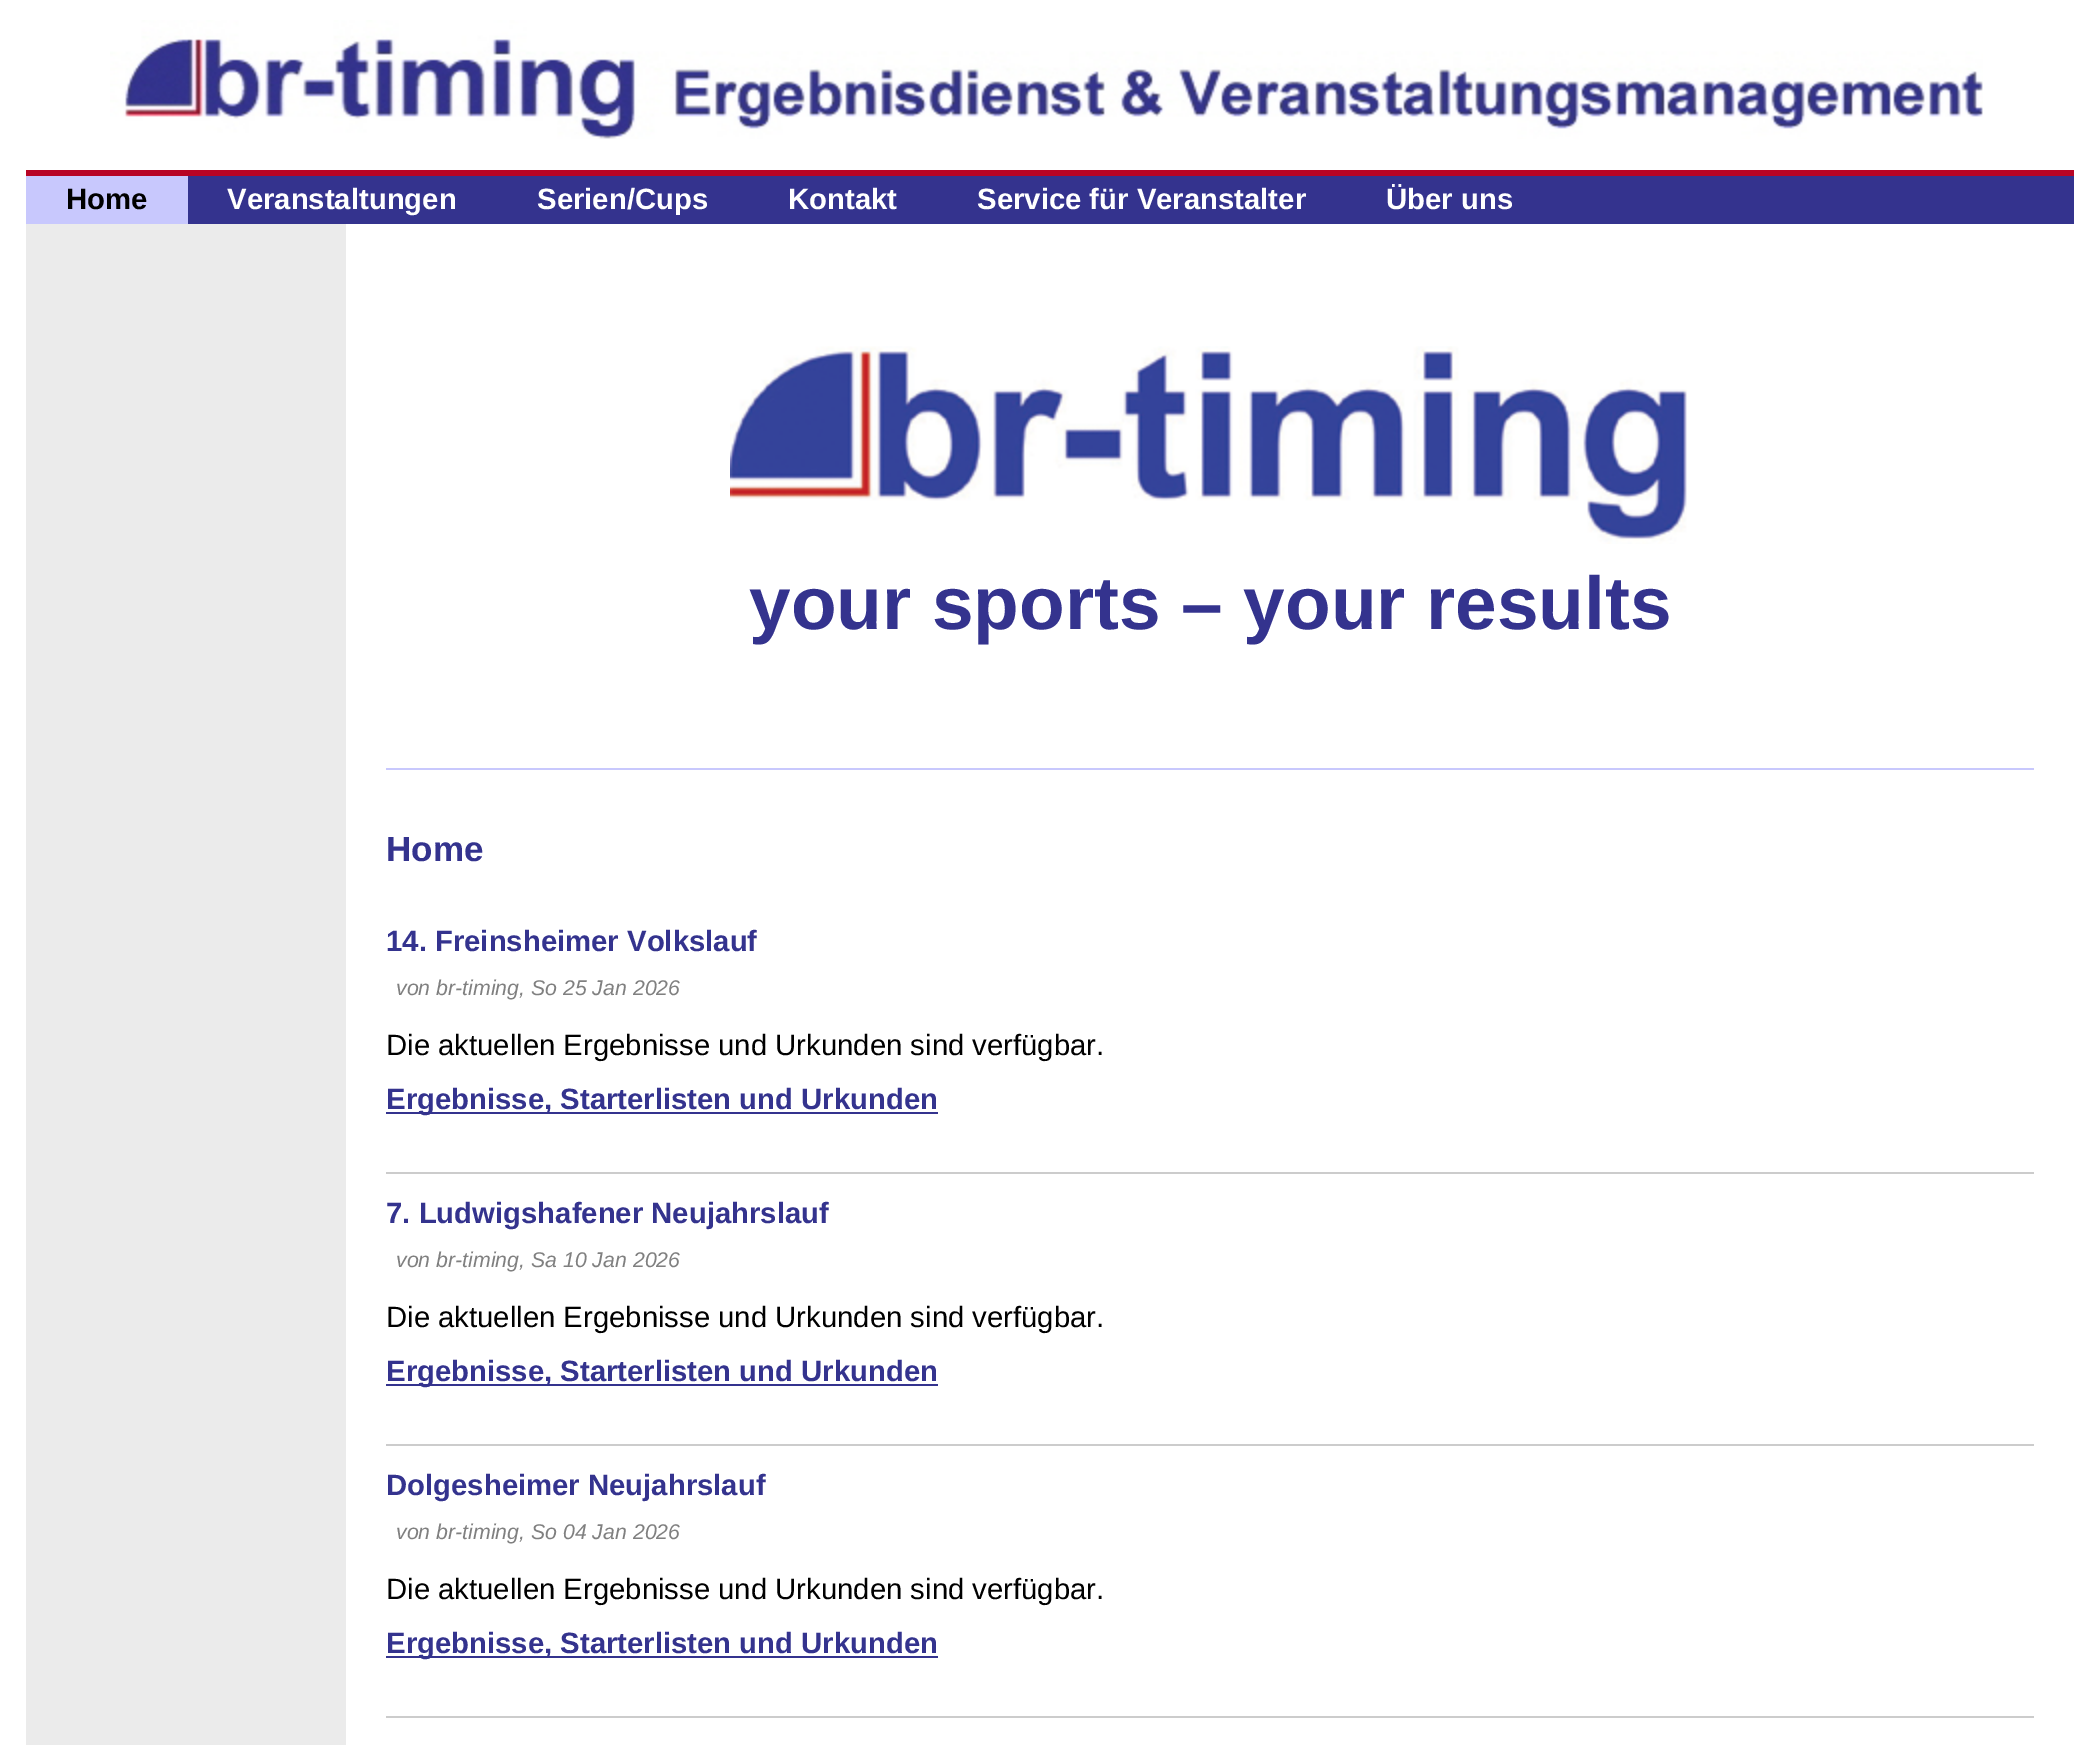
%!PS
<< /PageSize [2100 1745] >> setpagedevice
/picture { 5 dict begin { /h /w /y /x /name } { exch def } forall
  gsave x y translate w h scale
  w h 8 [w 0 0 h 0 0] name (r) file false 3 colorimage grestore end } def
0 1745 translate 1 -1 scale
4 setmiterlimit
1 setgray
0 0 2100 1745 rectfill
(img1.rgb) 110 20 1873 119 picture
0.922 setgray
26 224 320 1521 rectfill
0.204 0.2 0.557 setrgbcolor
188 176 1886 48 rectfill
0.722 0.016 0.145 setrgbcolor
26 170 2048 6 rectfill
0.784 0.784 0.992 setrgbcolor
26 176 162 48 rectfill
/LiberationSans-Bold [29.3 0 0 -29.3 0 0] selectfont
0 setgray
66 209 moveto (Home) show
1 setgray
227 209 moveto (Veranstaltungen) show
537 209 moveto (Serien/Cups) show
788 209 moveto (Kontakt) show
977 209 moveto (Service für Veranstalter) show
1386 209 moveto (Über uns) show
(img2.rgb) 730 346 957 198 picture
/LiberationSans-Bold [74.75 0 0 -74.75 0 0] selectfont
0.204 0.2 0.557 setrgbcolor
749 629 moveto (your sports – your results) show
0.784 0.784 0.992 setrgbcolor
386 768 1648 2 rectfill
/LiberationSans-Bold [35 0 0 -35 0 0] selectfont
0.204 0.2 0.557 setrgbcolor
386 861 moveto (Home) show
0.8 setgray
386 1172 1648 2 rectfill
/LiberationSans-Bold [29.3 0 0 -29.3 0 0] selectfont
0.204 0.2 0.557 setrgbcolor
386 951 moveto (14. Freinsheimer Volkslauf) show
/LiberationSans-Italic [21.3 0 0 -21.3 0 0] selectfont
0.502 setgray
396 995 moveto (von br-timing, So 25 Jan 2026) show
/LiberationSans-Regular [29.3 0 0 -29.3 0 0] selectfont
0 setgray
386 1055 moveto (Die aktuellen Ergebnisse und Urkunden sind verfügbar.) show
0.204 0.2 0.557 setrgbcolor
386 1112 552 2 rectfill
/LiberationSans-Bold [29.3 0 0 -29.3 0 0] selectfont
386 1109 moveto (Ergebnisse, Starterlisten und Urkunden) show
0.8 setgray
386 1444 1648 2 rectfill
0.204 0.2 0.557 setrgbcolor
386 1223 moveto (7. Ludwigshafener Neujahrslauf) show
/LiberationSans-Italic [21.3 0 0 -21.3 0 0] selectfont
0.502 setgray
396 1267 moveto (von br-timing, Sa 10 Jan 2026) show
/LiberationSans-Regular [29.3 0 0 -29.3 0 0] selectfont
0 setgray
386 1327 moveto (Die aktuellen Ergebnisse und Urkunden sind verfügbar.) show
0.204 0.2 0.557 setrgbcolor
386 1384 552 2 rectfill
/LiberationSans-Bold [29.3 0 0 -29.3 0 0] selectfont
386 1381 moveto (Ergebnisse, Starterlisten und Urkunden) show
0.8 setgray
386 1716 1648 2 rectfill
0.204 0.2 0.557 setrgbcolor
386 1495 moveto (Dolgesheimer Neujahrslauf) show
/LiberationSans-Italic [21.3 0 0 -21.3 0 0] selectfont
0.502 setgray
396 1539 moveto (von br-timing, So 04 Jan 2026) show
/LiberationSans-Regular [29.3 0 0 -29.3 0 0] selectfont
0 setgray
386 1599 moveto (Die aktuellen Ergebnisse und Urkunden sind verfügbar.) show
0.204 0.2 0.557 setrgbcolor
386 1656 552 2 rectfill
/LiberationSans-Bold [29.3 0 0 -29.3 0 0] selectfont
386 1653 moveto (Ergebnisse, Starterlisten und Urkunden) show
showpage
